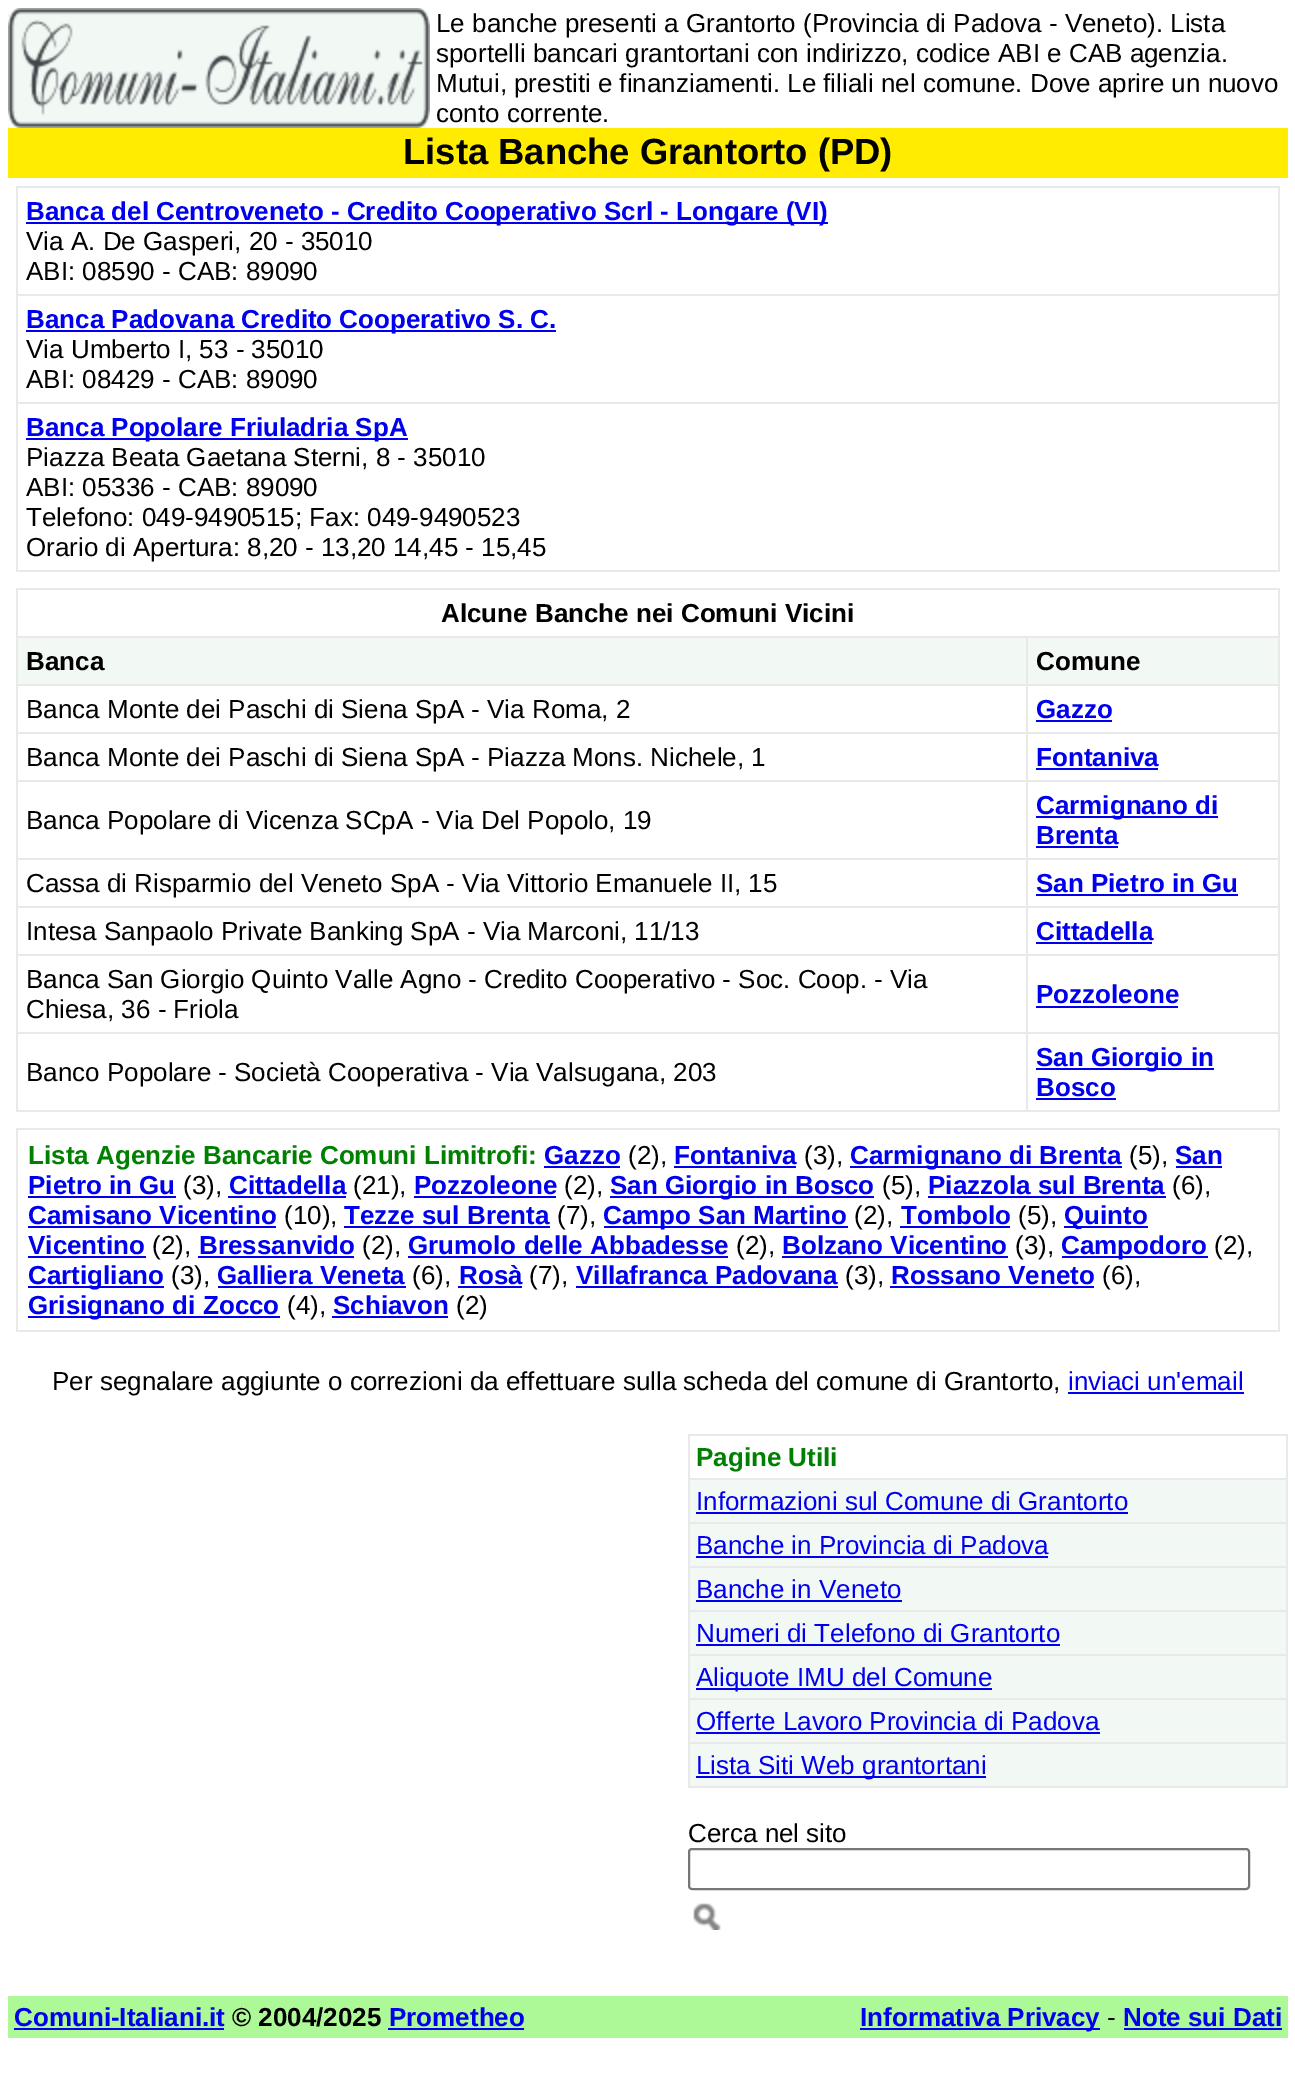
%!PS
<< /PageSize [1295 2099] >> setpagedevice
/roundrect { 5 dict begin { /r /h /w /y /x } { exch def } forall
  x r add y moveto x w add y 2 copy h add r arct x w add y h add x 1 index r arct
  x y h add x y r arct x y 2 copy exch w add exch r arct closepath end } def
/picture { 5 dict begin { /h /w /y /x /name } { exch def } forall
  gsave x y translate w h scale
  w h 8 [w 0 0 h 0 0] name (r) file false 3 colorimage grestore end } def
0 2099 translate 1 -1 scale
4 setmiterlimit
1 setgray
0 0 1295 2099 rectfill
(img1.rgb) 8 8 422 120 picture
/LiberationSans-Regular [26 0 0 -26 0 0] selectfont
0 setgray
436 32 moveto (Le banche presenti a Grantorto \(Provincia di Padova - Veneto\). Lista) show
436 62 moveto (sportelli bancari grantortani con indirizzo, codice ABI e CAB agenzia.) show
436 92 moveto (Mutui, prestiti e finanziamenti. Le filiali nel comune. Dove aprire un nuovo) show
436 122 moveto (conto corrente.) show
1 0.925 0 setrgbcolor
8 128 1280 50 rectfill
/LiberationSans-Bold [36.4 0 0 -36.4 0 0] selectfont
0 setgray
403 164 moveto (Lista Banche Grantorto \(PD\)) show
0.914 setgray
16 186 1264 2 rectfill
1278 186 2 386 rectfill
16 570 1264 2 rectfill
16 186 2 386 rectfill
0 0 0.933 setrgbcolor
26 222 802 2 rectfill
/LiberationSans-Bold [26 0 0 -26 0 0] selectfont
26 220 moveto (Banca del Centroveneto - Credito Cooperativo Scrl - Longare \(VI\)) show
/LiberationSans-Regular [26 0 0 -26 0 0] selectfont
0 setgray
26 250 moveto (Via A. De Gasperi, 20 - 35010) show
26 280 moveto (ABI: 08590 - CAB: 89090) show
0.914 setgray
16 294 1264 2 rectfill
0 0 0.933 setrgbcolor
26 330 530 2 rectfill
/LiberationSans-Bold [26 0 0 -26 0 0] selectfont
26 328 moveto (Banca Padovana Credito Cooperativo S. C.) show
/LiberationSans-Regular [26 0 0 -26 0 0] selectfont
0 setgray
26 358 moveto (Via Umberto I, 53 - 35010) show
26 388 moveto (ABI: 08429 - CAB: 89090) show
0.914 setgray
16 402 1264 2 rectfill
0 0 0.933 setrgbcolor
26 438 382 2 rectfill
/LiberationSans-Bold [26 0 0 -26 0 0] selectfont
26 436 moveto (Banca Popolare Friuladria SpA) show
/LiberationSans-Regular [26 0 0 -26 0 0] selectfont
0 setgray
26 466 moveto (Piazza Beata Gaetana Sterni, 8 - 35010) show
26 496 moveto (ABI: 05336 - CAB: 89090) show
26 526 moveto (Telefono: 049-9490515; Fax: 049-9490523) show
26 556 moveto (Orario di Apertura: 8,20 - 13,20 14,45 - 15,45) show
0.914 setgray
16 588 1264 2 rectfill
1278 588 2 524 rectfill
16 1110 1264 2 rectfill
16 588 2 524 rectfill
/LiberationSans-Bold [26 0 0 -26 0 0] selectfont
0 setgray
441 622 moveto (Alcune Banche nei Comuni Vicini) show
0.949 0.973 0.957 setrgbcolor
18 638 1008 46 rectfill
0.914 setgray
1026 636 254 2 rectfill
1026 684 254 2 rectfill
1026 732 254 2 rectfill
1026 780 254 2 rectfill
1026 858 254 2 rectfill
1026 906 254 2 rectfill
1026 954 254 2 rectfill
1026 1032 254 2 rectfill
1026 1032 2 80 rectfill
16 1032 1012 2 rectfill
1026 954 2 80 rectfill
16 954 1012 2 rectfill
1026 906 2 50 rectfill
16 906 1012 2 rectfill
1026 858 2 50 rectfill
16 858 1012 2 rectfill
1026 780 2 80 rectfill
16 780 1012 2 rectfill
1026 732 2 50 rectfill
16 732 1012 2 rectfill
1026 684 2 50 rectfill
16 684 1012 2 rectfill
1026 636 2 50 rectfill
16 636 1012 2 rectfill
0 setgray
26 670 moveto (Banca) show
0.949 0.973 0.957 setrgbcolor
1028 638 250 46 rectfill
0 setgray
1036 670 moveto (Comune) show
/LiberationSans-Regular [26 0 0 -26 0 0] selectfont
26 718 moveto (Banca Monte dei Paschi di Siena SpA - Via Roma, 2) show
/LiberationSans-Bold [26 0 0 -26 0 0] selectfont
0 0 0.933 setrgbcolor
1036 718 moveto (Gazzo) show
1036 720 76 2 rectfill
/LiberationSans-Regular [26 0 0 -26 0 0] selectfont
0 setgray
26 766 moveto (Banca Monte dei Paschi di Siena SpA - Piazza Mons. Nichele, 1) show
/LiberationSans-Bold [26 0 0 -26 0 0] selectfont
0 0 0.933 setrgbcolor
1036 766 moveto (Fontaniva) show
1036 768 122 2 rectfill
/LiberationSans-Regular [26 0 0 -26 0 0] selectfont
0 setgray
26 829 moveto (Banca Popolare di Vicenza SCpA - Via Del Popolo, 19) show
0 0 0.933 setrgbcolor
1036 816 182 2 rectfill
/LiberationSans-Bold [26 0 0 -26 0 0] selectfont
1036 814 moveto (Carmignano di) show
1036 844 moveto (Brenta) show
1036 846 82 2 rectfill
/LiberationSans-Regular [26 0 0 -26 0 0] selectfont
0 setgray
26 892 moveto (Cassa di Risparmio del Veneto SpA - Via Vittorio Emanuele II, 15) show
/LiberationSans-Bold [26 0 0 -26 0 0] selectfont
0 0 0.933 setrgbcolor
1036 892 moveto (San Pietro in Gu) show
1036 894 202 2 rectfill
/LiberationSans-Regular [26 0 0 -26 0 0] selectfont
0 setgray
26 940 moveto (Intesa Sanpaolo Private Banking SpA - Via Marconi, 11/13) show
/LiberationSans-Bold [26 0 0 -26 0 0] selectfont
0 0 0.933 setrgbcolor
1036 940 moveto (Cittadella) show
1036 942 116 2 rectfill
/LiberationSans-Regular [26 0 0 -26 0 0] selectfont
0 setgray
26 988 moveto (Banca San Giorgio Quinto Valle Agno - Credito Cooperativo - Soc. Coop. - Via) show
26 1018 moveto (Chiesa, 36 - Friola) show
/LiberationSans-Bold [26 0 0 -26 0 0] selectfont
0 0 0.933 setrgbcolor
1036 1003 moveto (Pozzoleone) show
1036 1006 142 2 rectfill
/LiberationSans-Regular [26 0 0 -26 0 0] selectfont
0 setgray
26 1081 moveto (Banco Popolare - Società Cooperativa - Via Valsugana, 203) show
0 0 0.933 setrgbcolor
1036 1068 178 2 rectfill
/LiberationSans-Bold [26 0 0 -26 0 0] selectfont
1036 1066 moveto (San Giorgio in) show
1036 1096 moveto (Bosco) show
1036 1098 80 2 rectfill
0.914 setgray
16 1128 1264 2 rectfill
1278 1128 2 204 rectfill
16 1330 1264 2 rectfill
16 1128 2 204 rectfill
0 0.502 0 setrgbcolor
28 1164 moveto (Lista Agenzie Bancarie Comuni Limitrofi:) show
0 0 0.933 setrgbcolor
544 1164 moveto (Gazzo) show
544 1166 76 2 rectfill
/LiberationSans-Regular [26 0 0 -26 0 0] selectfont
0 setgray
628 1164 moveto (\(2\),) show
/LiberationSans-Bold [26 0 0 -26 0 0] selectfont
0 0 0.933 setrgbcolor
674 1164 moveto (Fontaniva) show
674 1166 122 2 rectfill
/LiberationSans-Regular [26 0 0 -26 0 0] selectfont
0 setgray
804 1164 moveto (\(3\),) show
0 0 0.933 setrgbcolor
850 1166 272 2 rectfill
/LiberationSans-Bold [26 0 0 -26 0 0] selectfont
850 1164 moveto (Carmignano di Brenta) show
/LiberationSans-Regular [26 0 0 -26 0 0] selectfont
0 setgray
1129 1164 moveto (\(5\),) show
/LiberationSans-Bold [26 0 0 -26 0 0] selectfont
0 0 0.933 setrgbcolor
1175 1164 moveto (San) show
1176 1166 46 2 rectfill
28 1194 moveto (Pietro in Gu) show
28 1196 148 2 rectfill
/LiberationSans-Regular [26 0 0 -26 0 0] selectfont
0 setgray
183 1194 moveto (\(3\),) show
/LiberationSans-Bold [26 0 0 -26 0 0] selectfont
0 0 0.933 setrgbcolor
229 1194 moveto (Cittadella) show
228 1196 118 2 rectfill
/LiberationSans-Regular [26 0 0 -26 0 0] selectfont
0 setgray
353 1194 moveto (\(21\),) show
/LiberationSans-Bold [26 0 0 -26 0 0] selectfont
0 0 0.933 setrgbcolor
414 1194 moveto (Pozzoleone) show
414 1196 142 2 rectfill
/LiberationSans-Regular [26 0 0 -26 0 0] selectfont
0 setgray
564 1194 moveto (\(2\),) show
0 0 0.933 setrgbcolor
610 1196 264 2 rectfill
/LiberationSans-Bold [26 0 0 -26 0 0] selectfont
610 1194 moveto (San Giorgio in Bosco) show
/LiberationSans-Regular [26 0 0 -26 0 0] selectfont
0 setgray
882 1194 moveto (\(5\),) show
/LiberationSans-Bold [26 0 0 -26 0 0] selectfont
0 0 0.933 setrgbcolor
928 1194 moveto (Piazzola sul Brenta) show
928 1196 238 2 rectfill
/LiberationSans-Regular [26 0 0 -26 0 0] selectfont
0 setgray
1172 1194 moveto (\(6\),) show
/LiberationSans-Bold [26 0 0 -26 0 0] selectfont
0 0 0.933 setrgbcolor
28 1224 moveto (Camisano Vicentino) show
28 1226 248 2 rectfill
/LiberationSans-Regular [26 0 0 -26 0 0] selectfont
0 setgray
284 1224 moveto (\(10\),) show
/LiberationSans-Bold [26 0 0 -26 0 0] selectfont
0 0 0.933 setrgbcolor
344 1224 moveto (Tezze sul Brenta) show
344 1226 206 2 rectfill
/LiberationSans-Regular [26 0 0 -26 0 0] selectfont
0 setgray
557 1224 moveto (\(7\),) show
0 0 0.933 setrgbcolor
604 1226 244 2 rectfill
/LiberationSans-Bold [26 0 0 -26 0 0] selectfont
603 1224 moveto (Campo San Martino) show
/LiberationSans-Regular [26 0 0 -26 0 0] selectfont
0 setgray
854 1224 moveto (\(2\),) show
/LiberationSans-Bold [26 0 0 -26 0 0] selectfont
0 0 0.933 setrgbcolor
901 1224 moveto (Tombolo) show
900 1226 110 2 rectfill
/LiberationSans-Regular [26 0 0 -26 0 0] selectfont
0 setgray
1018 1224 moveto (\(5\),) show
0 0 0.933 setrgbcolor
1064 1226 84 2 rectfill
/LiberationSans-Bold [26 0 0 -26 0 0] selectfont
1064 1224 moveto (Quinto) show
28 1254 moveto (Vicentino) show
28 1256 118 2 rectfill
/LiberationSans-Regular [26 0 0 -26 0 0] selectfont
0 setgray
152 1254 moveto (\(2\),) show
/LiberationSans-Bold [26 0 0 -26 0 0] selectfont
0 0 0.933 setrgbcolor
199 1254 moveto (Bressanvido) show
198 1256 156 2 rectfill
/LiberationSans-Regular [26 0 0 -26 0 0] selectfont
0 setgray
362 1254 moveto (\(2\),) show
/LiberationSans-Bold [26 0 0 -26 0 0] selectfont
0 0 0.933 setrgbcolor
408 1254 moveto (Grumolo delle Abbadesse) show
408 1256 320 2 rectfill
/LiberationSans-Regular [26 0 0 -26 0 0] selectfont
0 setgray
736 1254 moveto (\(2\),) show
/LiberationSans-Bold [26 0 0 -26 0 0] selectfont
0 0 0.933 setrgbcolor
782 1254 moveto (Bolzano Vicentino) show
782 1256 226 2 rectfill
/LiberationSans-Regular [26 0 0 -26 0 0] selectfont
0 setgray
1015 1254 moveto (\(3\),) show
0 0 0.933 setrgbcolor
1062 1256 146 2 rectfill
/LiberationSans-Bold [26 0 0 -26 0 0] selectfont
1061 1254 moveto (Campodoro) show
/LiberationSans-Regular [26 0 0 -26 0 0] selectfont
0 setgray
1214 1254 moveto (\(2\),) show
0 0 0.933 setrgbcolor
28 1286 136 2 rectfill
/LiberationSans-Bold [26 0 0 -26 0 0] selectfont
28 1284 moveto (Cartigliano) show
/LiberationSans-Regular [26 0 0 -26 0 0] selectfont
0 setgray
171 1284 moveto (\(3\),) show
/LiberationSans-Bold [26 0 0 -26 0 0] selectfont
0 0 0.933 setrgbcolor
217 1284 moveto (Galliera Veneta) show
218 1286 188 2 rectfill
/LiberationSans-Regular [26 0 0 -26 0 0] selectfont
0 setgray
412 1284 moveto (\(6\),) show
/LiberationSans-Bold [26 0 0 -26 0 0] selectfont
0 0 0.933 setrgbcolor
459 1284 moveto (Rosà) show
458 1286 64 2 rectfill
/LiberationSans-Regular [26 0 0 -26 0 0] selectfont
0 setgray
529 1284 moveto (\(7\),) show
/LiberationSans-Bold [26 0 0 -26 0 0] selectfont
0 0 0.933 setrgbcolor
576 1284 moveto (Villafranca Padovana) show
576 1286 262 2 rectfill
/LiberationSans-Regular [26 0 0 -26 0 0] selectfont
0 setgray
845 1284 moveto (\(3\),) show
/LiberationSans-Bold [26 0 0 -26 0 0] selectfont
0 0 0.933 setrgbcolor
891 1284 moveto (Rossano Veneto) show
890 1286 204 2 rectfill
/LiberationSans-Regular [26 0 0 -26 0 0] selectfont
0 setgray
1102 1284 moveto (\(6\),) show
0 0 0.933 setrgbcolor
28 1316 252 2 rectfill
/LiberationSans-Bold [26 0 0 -26 0 0] selectfont
28 1314 moveto (Grisignano di Zocco) show
/LiberationSans-Regular [26 0 0 -26 0 0] selectfont
0 setgray
287 1314 moveto (\(4\),) show
/LiberationSans-Bold [26 0 0 -26 0 0] selectfont
0 0 0.933 setrgbcolor
333 1314 moveto (Schiavon) show
332 1316 116 2 rectfill
/LiberationSans-Regular [26 0 0 -26 0 0] selectfont
0 setgray
456 1314 moveto (\(2\)) show
52 1390 moveto (Per segnalare aggiunte o correzioni da effettuare sulla scheda del comune di Grantorto,) show
0 0 0.933 setrgbcolor
1068 1390 moveto (inviaci un'email) show
1068 1392 176 2 rectfill
0.949 0.973 0.957 setrgbcolor
690 1480 596 306 rectfill
0.914 setgray
688 1434 600 2 rectfill
1286 1434 2 354 rectfill
688 1786 600 2 rectfill
688 1434 2 354 rectfill
/LiberationSans-Bold [26 0 0 -26 0 0] selectfont
0 0.502 0 setrgbcolor
696 1466 moveto (Pagine Utili) show
0.914 setgray
688 1478 600 2 rectfill
/LiberationSans-Regular [26 0 0 -26 0 0] selectfont
0 0 0.933 setrgbcolor
696 1510 moveto (Informazioni sul Comune di Grantorto) show
696 1512 432 2 rectfill
0.914 setgray
688 1522 600 2 rectfill
0 0 0.933 setrgbcolor
696 1554 moveto (Banche in Provincia di Padova) show
696 1556 352 2 rectfill
0.914 setgray
688 1566 600 2 rectfill
0 0 0.933 setrgbcolor
696 1598 moveto (Banche in Veneto) show
696 1600 206 2 rectfill
0.914 setgray
688 1610 600 2 rectfill
0 0 0.933 setrgbcolor
696 1642 moveto (Numeri di Telefono di Grantorto) show
696 1644 364 2 rectfill
0.914 setgray
688 1654 600 2 rectfill
0 0 0.933 setrgbcolor
696 1688 296 2 rectfill
696 1686 moveto (Aliquote IMU del Comune) show
0.914 setgray
688 1698 600 2 rectfill
0 0 0.933 setrgbcolor
696 1730 moveto (Offerte Lavoro Provincia di Padova) show
696 1732 404 2 rectfill
0.914 setgray
688 1742 600 2 rectfill
0 0 0.933 setrgbcolor
696 1776 290 2 rectfill
696 1774 moveto (Lista Siti Web grantortani) show
0 setgray
688 1842 moveto (Cerca nel sito) show
0.463 setgray
2 setlinewidth
689 1849 560 40 3 roundrect stroke
(img2.rgb) 693 1903 28 27 picture
0.678 0.976 0.592 setrgbcolor
8 1996 1280 42 rectfill
/LiberationSans-Bold [26 0 0 -26 0 0] selectfont
0 0 0.933 setrgbcolor
14 2026 moveto (Comuni-Italiani.it) show
14 2028 210 2 rectfill
0 setgray
232 2026 moveto (© 2004/2025) show
0 0 0.933 setrgbcolor
389 2026 moveto (Prometheo) show
388 2028 136 2 rectfill
860 2028 240 2 rectfill
860 2026 moveto (Informativa Privacy) show
/LiberationSans-Regular [26 0 0 -26 0 0] selectfont
0 setgray
1107 2026 moveto (-) show
/LiberationSans-Bold [26 0 0 -26 0 0] selectfont
0 0 0.933 setrgbcolor
1123 2026 moveto (Note sui Dati) show
1124 2028 158 2 rectfill
showpage
